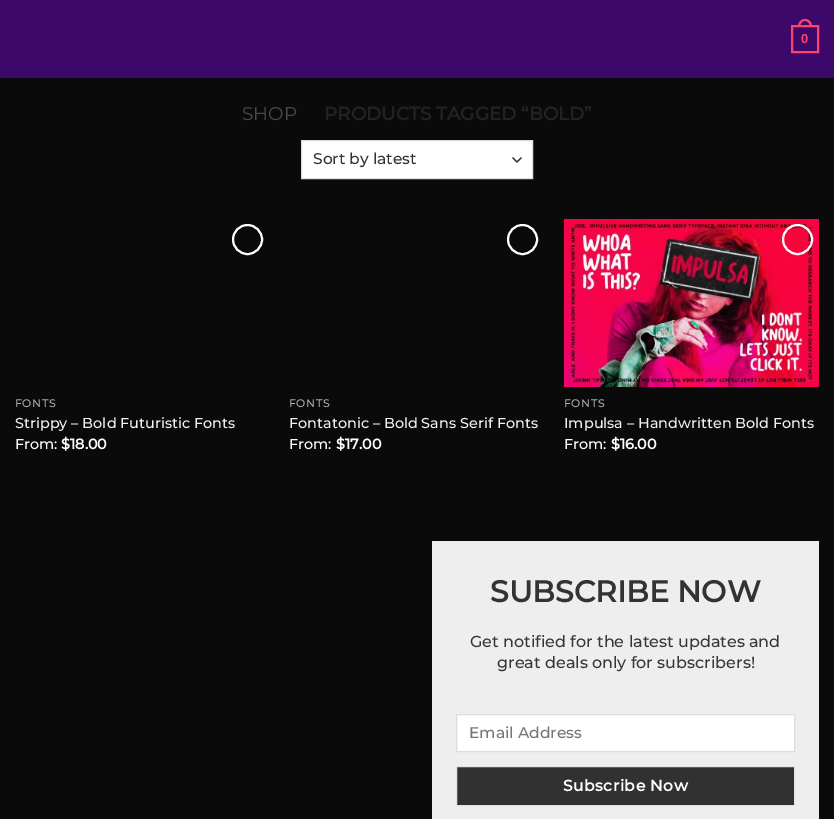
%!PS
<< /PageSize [834 819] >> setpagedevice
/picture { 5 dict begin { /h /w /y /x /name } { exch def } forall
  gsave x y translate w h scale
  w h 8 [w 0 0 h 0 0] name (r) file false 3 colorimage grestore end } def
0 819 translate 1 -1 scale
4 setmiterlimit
0.039 setgray
0 0 834 819 rectfill
0.235 0.035 0.416 setrgbcolor
0 0 834 78 rectfill
1 0.255 0.42 setrgbcolor
2 setlinewidth
792 26 26 26 rectstroke
newpath 805 19 moveto 809.5 19 812 23 812 27 curveto 798 27 lineto 798 23 800.5 19 805 19 curveto closepath 805 21 moveto 808.5 21 810 24 810 27 curveto 800 27 lineto 800 24 801.5 21 805 21 curveto closepath eofill
/LiberationSans-Bold [13 0 0 -13 0 0] selectfont
801 43 moveto (0) show
/Montserrat-Regular [18.4 0 0 -18.4 0 0] selectfont
0.29 setgray
242 120 moveto (SHOP) show
/Montserrat-Bold [18.4 0 0 -18.4 0 0] selectfont
0.133 setgray
324 120 moveto (PRODUCTS TAGGED “BOLD”) show
1 setgray
302 141 230 37 rectfill
0.2 setgray
1.3 setlinewidth
1 setlinecap
1 setlinejoin
newpath 513 158 moveto 517 162 lineto 521 158 lineto stroke
0.867 setgray
1 setlinewidth
0 setlinecap
0 setlinejoin
301.5 140.5 231 38 rectstroke
/Montserrat-Medium [15.5 0 0 -15.5 0 0] selectfont
0.2 setgray
313 164 moveto (Sort by latest) show
1 setgray
2 setlinewidth
newpath 247.5 239.5 14.5 0 360 arc closepath stroke
/Montserrat-Medium [11 0 0 -11 0 0] selectfont
0.675 setgray
15 407 moveto 0.5 0 (FONTS) ashow
/Montserrat-Medium [14.4 0 0 -14.4 0 0] selectfont
0.945 setgray
15 428 moveto (Strippy – Bold Futuristic Fonts) show
1 setgray
15 449 moveto (From:) show
/Montserrat-Bold [14.4 0 0 -14.4 0 0] selectfont
61 449 moveto ($18.00) show
newpath 522.5 239.5 14.5 0 360 arc closepath stroke
/Montserrat-Medium [11 0 0 -11 0 0] selectfont
0.675 setgray
289 407 moveto 0.5 0 (FONTS) ashow
/Montserrat-Medium [14.4 0 0 -14.4 0 0] selectfont
0.945 setgray
289 428 moveto (Fontatonic – Bold Sans Serif Fonts) show
1 setgray
289 449 moveto (From:) show
/Montserrat-Bold [14.4 0 0 -14.4 0 0] selectfont
336 449 moveto ($17.00) show
(img1.rgb) 564 219 255 168 picture
newpath 797.5 239.5 14.5 0 360 arc closepath stroke
/Montserrat-Medium [11 0 0 -11 0 0] selectfont
0.675 setgray
564 407 moveto 0.5 0 (FONTS) ashow
/Montserrat-Medium [14.4 0 0 -14.4 0 0] selectfont
0.945 setgray
564 428 moveto (Impulsa – Handwritten Bold Fonts) show
1 setgray
564 449 moveto (From:) show
/Montserrat-Bold [14.4 0 0 -14.4 0 0] selectfont
611 449 moveto ($16.00) show
0.933 setgray
432 541 387 278 rectfill
/Montserrat-Bold [30 0 0 -30 0 0] selectfont
0.2 setgray
490 602 moveto (SUBSCRIBE NOW) show
/Montserrat-Medium [16 0 0 -16 0 0] selectfont
0.196 0.216 0.235 setrgbcolor
470 647 moveto (Get notified for the latest updates and) show
497 668 moveto (great deals only for subscribers!) show
1 setgray
newpath 456.5 714.5 moveto 794.5 714.5 lineto 794.5 751.5 lineto 456.5 751.5 lineto closepath gsave fill grestore
0.867 setgray
1 setlinewidth
stroke
/Montserrat-Medium [15.5 0 0 -15.5 0 0] selectfont
0.459 setgray
469 738 moveto (Email Address) show
0.192 setgray
newpath 456.5 766.5 moveto 794.5 766.5 lineto 794.5 805.5 lineto 456.5 805.5 lineto closepath gsave fill grestore
0.886 setgray
stroke
/Montserrat-Bold [15.5 0 0 -15.5 0 0] selectfont
1 setgray
563 791 moveto 0.5 0 (Subscribe Now) ashow
showpage
